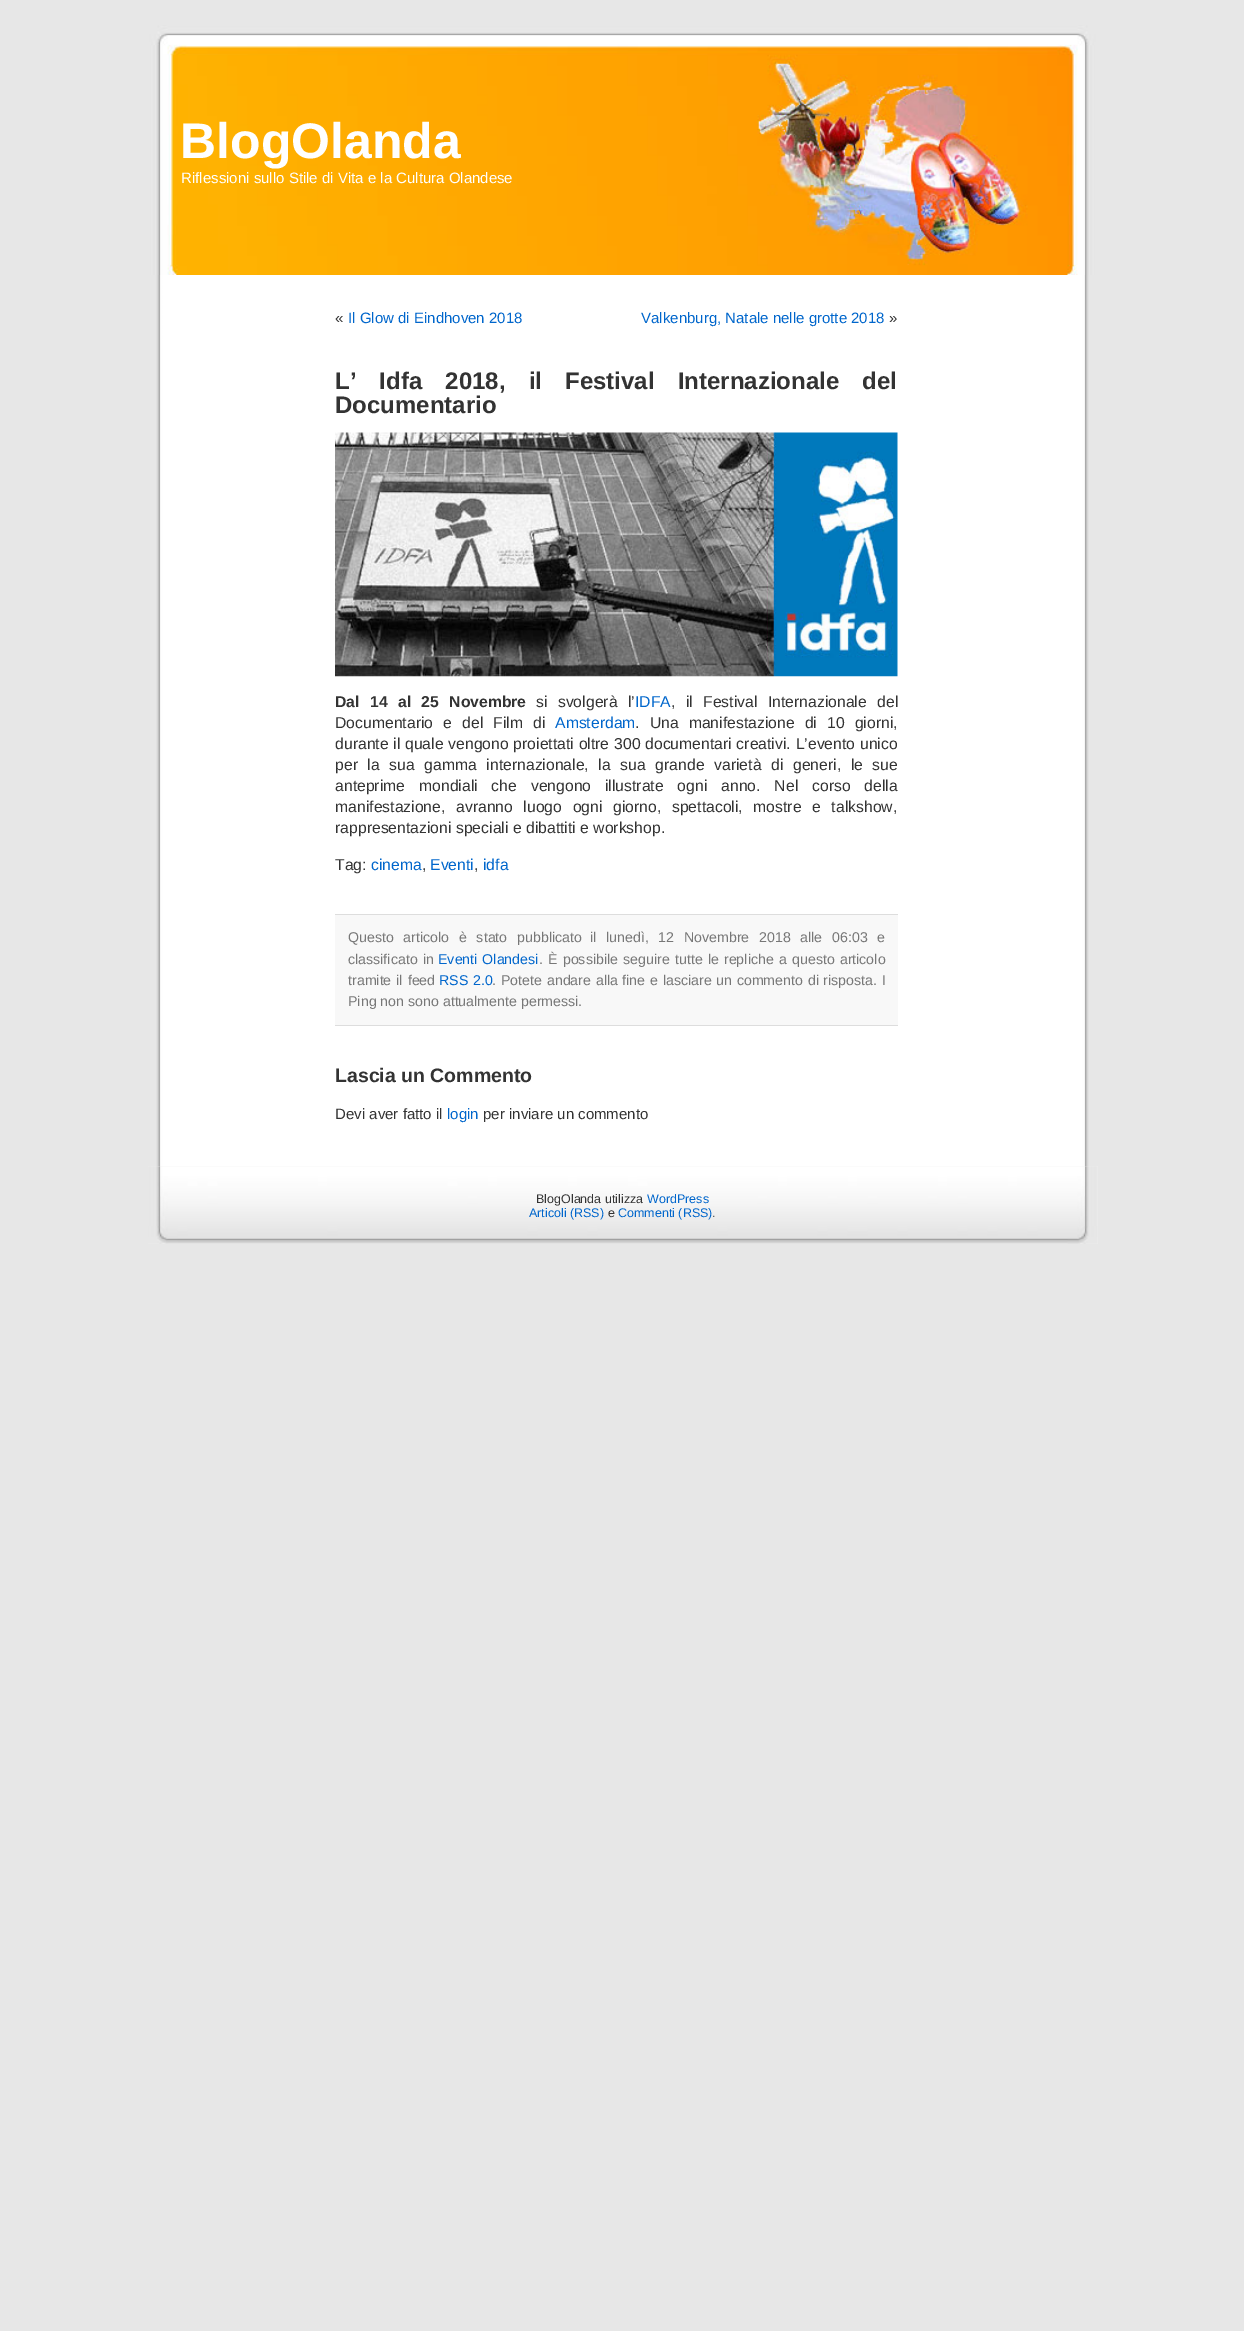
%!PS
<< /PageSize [1244 2331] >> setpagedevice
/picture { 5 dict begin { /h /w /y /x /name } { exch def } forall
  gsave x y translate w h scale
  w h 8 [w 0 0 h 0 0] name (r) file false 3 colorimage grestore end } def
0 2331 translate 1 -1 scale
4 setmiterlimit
0.906 setgray
0 0 1244 2331 rectfill
(img1.rgb) 156 275 933 891 picture
(img2.rgb) 149 25 947 250 picture
/LiberationSans-Bold [50 0 0 -50 0 0] selectfont
1 setgray
180 158 moveto (BlogOlanda) show
/LiberationSans-Regular [15 0 0 -15 0 0] selectfont
181 183 moveto (Riflessioni sullo Stile di Vita e la Cultura Olandese) show
0.2 setgray
335 323 moveto («) show
0 0.4 0.8 setrgbcolor
348 323 moveto (Il Glow di Eindhoven 2018) show
641 323 moveto (Valkenburg, Natale nelle grotte 2018) show
0.2 setgray
889 323 moveto (») show
/LiberationSans-Bold [24 0 0 -24 0 0] selectfont
335 389 moveto 16.5 0 32 (L’ Idfa 2018, il Festival Internazionale del) widthshow
335 413 moveto (Documentario) show
(img3.rgb) 335 432 563 245 picture
/LiberationSans-Bold [15.75 0 0 -15.75 0 0] selectfont
335 707 moveto 6 0 32 (Dal 14 al 25 Novembre) widthshow
/LiberationSans-Regular [15.75 0 0 -15.75 0 0] selectfont
536 707 moveto 6 0 32 (si svolgerà l’) widthshow
0 0.4 0.8 setrgbcolor
635 707 moveto (IDFA) show
0.2 setgray
671 707 moveto 6 0 32 (, il Festival Internazionale del) widthshow
335 728 moveto 5.75 0 32 (Documentario e del Film di) widthshow
0 0.4 0.8 setrgbcolor
555 728 moveto (Amsterdam) show
0.2 setgray
635 728 moveto 5.75 0 32 (. Una manifestazione di 10 giorni,) widthshow
335 749 moveto 0.4 0 32 (durante il quale vengono proiettati oltre 300 documentari creativi. L’evento unico) widthshow
335 770 moveto 5.25 0 32 (per la sua gamma internazionale, la sua grande varietà di generi, le sue) widthshow
335 791 moveto 9.5 0 32 (anteprime mondiali che vengono illustrate ogni anno. Nel corso della) widthshow
335 812 moveto 6.25 0 32 (manifestazione, avranno luogo ogni giorno, spettacoli, mostre e talkshow,) widthshow
335 833 moveto (rappresentazioni speciali e dibattiti e workshop.) show
335 870 moveto (Tag:) show
0 0.4 0.8 setrgbcolor
371 870 moveto (cinema) show
0.2 setgray
422 870 moveto (,) show
0 0.4 0.8 setrgbcolor
430 870 moveto (Eventi) show
0.2 setgray
474 870 moveto (,) show
0 0.4 0.8 setrgbcolor
483 870 moveto (idfa) show
0.973 setgray
335 915 563 110 rectfill
0.867 setgray
335 914 563 1 rectfill
335 1025 563 1 rectfill
/LiberationSans-Regular [14.2 0 0 -14.2 0 0] selectfont
0.467 setgray
348 942 moveto 5.75 0 32 (Questo articolo è stato pubblicato) widthshow
590 942 moveto 5.75 0 32 (il lunedì, 12 Novembre 2018 alle 06:03 e) widthshow
348 964 moveto 1.25 0 32 (classificato in) widthshow
0 0.4 0.8 setrgbcolor
438 964 moveto 1 0 32 (Eventi Olandesi) widthshow
0.467 setgray
539 964 moveto (.) show
548 964 moveto 1.25 0 32 (È possibile seguire tutte le repliche a questo articolo) widthshow
348 985 moveto 1 0 32 (tramite il feed) widthshow
0 0.4 0.8 setrgbcolor
439 985 moveto 1 0 32 (RSS 2.0) widthshow
0.467 setgray
492 985 moveto (.) show
501 985 moveto 0.75 0 32 (Potete andare alla fine e lasciare un commento di risposta. I) widthshow
348 1006 moveto (Ping non sono attualmente permessi.) show
/LiberationSans-Bold [19.5 0 0 -19.5 0 0] selectfont
0.2 setgray
335 1082 moveto (Lascia un Commento) show
/LiberationSans-Regular [15 0 0 -15 0 0] selectfont
335 1119 moveto (Devi aver fatto il) show
0 0.4 0.8 setrgbcolor
447 1119 moveto (login) show
0.2 setgray
483 1119 moveto (per inviare un commento) show
0.933 setgray
148 1166 950 78 rectfill
(img4.rgb) 148 1166 950 78 picture
/LiberationSans-Regular [12.5 0 0 -12.5 0 0] selectfont
0.2 setgray
536 1203 moveto (BlogOlanda utilizza) show
0 0.4 0.8 setrgbcolor
647 1203 moveto (WordPress) show
529 1217 moveto (Articoli \(RSS\)) show
0.2 setgray
608 1217 moveto (e) show
0 0.4 0.8 setrgbcolor
618 1217 moveto (Commenti \(RSS\)) show
0.2 setgray
712 1217 moveto (.) show
showpage
